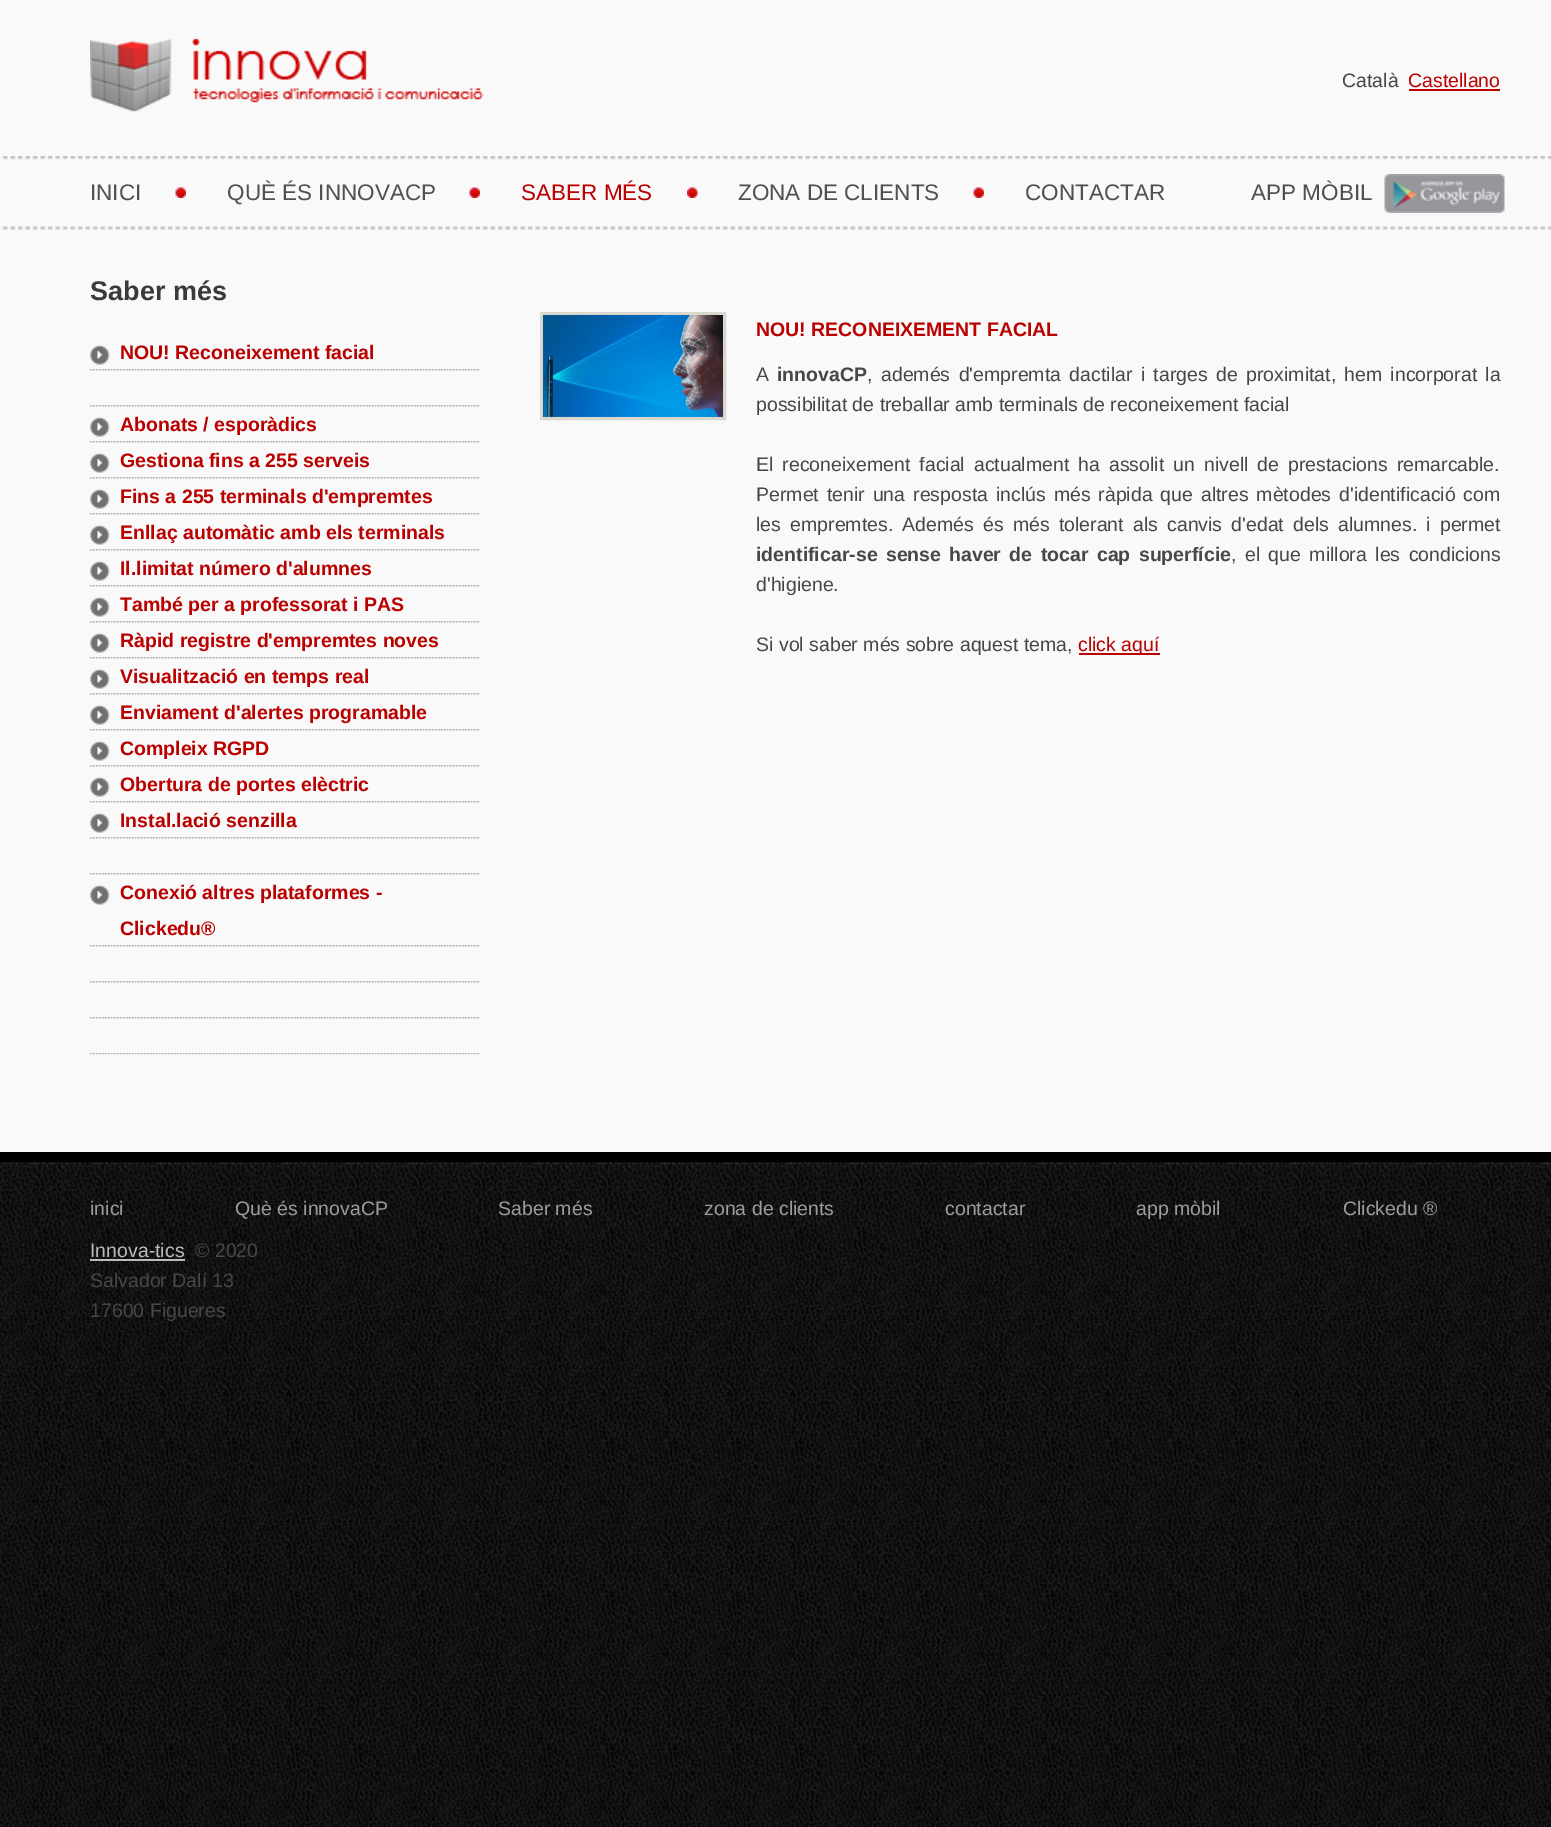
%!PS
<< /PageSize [1551 1827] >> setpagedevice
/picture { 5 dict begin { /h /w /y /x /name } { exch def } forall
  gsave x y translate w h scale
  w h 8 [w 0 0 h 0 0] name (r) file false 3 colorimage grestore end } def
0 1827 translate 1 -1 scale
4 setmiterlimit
1 setgray
0 0 1551 1827 rectfill
(img1.rgb) 0 1320 1551 507 picture
0.976 setgray
0 0 1551 156 rectfill
(img2.rgb) 90 38 394 74 picture
/LiberationSans-Regular [19.5 0 0 -19.5 0 0] selectfont
0.278 setgray
1342 87 moveto (Català) show
0.733 0 0 setrgbcolor
1408 87 moveto (Castellano) show
1409 89 91 2 rectfill
0.976 setgray
0 229 1551 923 rectfill
(img3.rgb) 0 156 1551 74 picture
/LiberationSans-Regular [22.5 0 0 -22.5 0 0] selectfont
0.314 setgray
90 200 moveto (INICI) show
(img4.rgb) 175 187 11 11 picture
227 200 moveto (QUÈ ÉS INNOVACP) show
(img5.rgb) 469 187 11 11 picture
0.733 0 0 setrgbcolor
521 200 moveto (SABER MÉS) show
(img6.rgb) 687 187 11 11 picture
0.314 setgray
738 200 moveto (ZONA DE CLIENTS) show
(img7.rgb) 973 187 11 11 picture
1025 200 moveto (CONTACTAR) show
1251 200 moveto (APP MÒBIL) show
(img8.rgb) 1384 174 121 39 picture
/LiberationSans-Bold [27 0 0 -27 0 0] selectfont
0.227 setgray
90 300 moveto (Saber més) show
(img9.rgb) 90 369 390 2 picture
(img10.rgb) 90 345 20 20 picture
/LiberationSans-Bold [19.5 0 0 -19.5 0 0] selectfont
0.733 0 0 setrgbcolor
120 359 moveto (NOU! Reconeixement facial) show
(img9.rgb) 90 405 390 2 picture
(img9.rgb) 90 441 390 2 picture
(img10.rgb) 90 417 20 20 picture
120 431 moveto (Abonats / esporàdics) show
(img9.rgb) 90 477 390 2 picture
(img10.rgb) 90 453 20 20 picture
120 467 moveto (Gestiona fins a 255 serveis) show
(img9.rgb) 90 513 390 2 picture
(img10.rgb) 90 489 20 20 picture
120 503 moveto (Fins a 255 terminals d'empremtes) show
(img9.rgb) 90 549 390 2 picture
(img10.rgb) 90 525 20 20 picture
120 539 moveto (Enllaç automàtic amb els terminals) show
(img9.rgb) 90 585 390 2 picture
(img10.rgb) 90 561 20 20 picture
120 575 moveto (Il.limitat número d'alumnes) show
(img9.rgb) 90 621 390 2 picture
(img10.rgb) 90 597 20 20 picture
120 611 moveto (També per a professorat i PAS) show
(img9.rgb) 90 657 390 2 picture
(img10.rgb) 90 633 20 20 picture
120 647 moveto (Ràpid registre d'empremtes noves) show
(img9.rgb) 90 693 390 2 picture
(img10.rgb) 90 669 20 20 picture
120 683 moveto (Visualització en temps real) show
(img9.rgb) 90 729 390 2 picture
(img10.rgb) 90 705 20 20 picture
120 719 moveto (Enviament d'alertes programable) show
(img9.rgb) 90 765 390 2 picture
(img10.rgb) 90 741 20 20 picture
120 755 moveto (Compleix RGPD) show
(img9.rgb) 90 801 390 2 picture
(img10.rgb) 90 777 20 20 picture
120 791 moveto (Obertura de portes elèctric) show
(img9.rgb) 90 837 390 2 picture
(img10.rgb) 90 813 20 20 picture
120 827 moveto (Instal.lació senzilla) show
(img9.rgb) 90 873 390 2 picture
(img9.rgb) 90 945 390 2 picture
(img10.rgb) 90 885 20 20 picture
120 899 moveto (Conexió altres plataformes -) show
120 935 moveto (Clickedu®) show
(img9.rgb) 90 981 390 2 picture
(img9.rgb) 90 1017 390 2 picture
(img11.rgb) 90 1053 390 2 picture
0.855 0.843 0.808 setrgbcolor
3 setlinewidth
541.5 313.5 183 105 rectstroke
(img12.rgb) 543 315 180 102 picture
0.733 0 0 setrgbcolor
756 336 moveto (NOU! RECONEIXEMENT FACIAL) show
/LiberationSans-Regular [19.5 0 0 -19.5 0 0] selectfont
0.278 setgray
756 381 moveto (A) show
/LiberationSans-Bold [19.5 0 0 -19.5 0 0] selectfont
777 381 moveto (innovaCP) show
/LiberationSans-Regular [19.5 0 0 -19.5 0 0] selectfont
867 381 moveto 3 0 32 (, ademés d'empremta dactilar i targes de proximitat,) widthshow
1344 381 moveto 3 0 32 (hem incorporat la) widthshow
756 411 moveto (possibilitat de treballar amb terminals de reconeixement facial) show
756 471 moveto 3.6 0 32 (El reconeixement facial actualment ha assolit un nivell de prestacions remarcable.) widthshow
756 501 moveto 2.5 0 32 (Permet tenir una resposta inclús més ràpida que altres mètodes) widthshow
1339 501 moveto 2.5 0 32 (d'identificació com) widthshow
756 531 moveto 3.75 0 32 (les empremtes. Ademés és més tolerant als canvis d'edat dels alumnes. i permet) widthshow
/LiberationSans-Bold [19.5 0 0 -19.5 0 0] selectfont
756 561 moveto 3 0 32 (identificar-se sense) widthshow
949 561 moveto 3 0 32 (haver de tocar cap superfície) widthshow
/LiberationSans-Regular [19.5 0 0 -19.5 0 0] selectfont
1231 561 moveto 3 0 32 (, el que millora les condicions) widthshow
756 591 moveto (d'higiene.) show
756 651 moveto (Si vol saber més sobre aquest tema,) show
0.733 0 0 setrgbcolor
1079 653 81 2 rectfill
1078 651 moveto (click aquí) show
(img13.rgb) 0 1152 1551 168 picture
0.612 setgray
90 1215 moveto (inici) show
235 1215 moveto (Què és innovaCP) show
498 1215 moveto (Saber més) show
704 1215 moveto (zona de clients) show
945 1215 moveto (contactar) show
1136 1215 moveto (app mòbil) show
1343 1215 moveto (Clickedu ®) show
0.733 setgray
90 1257 moveto (Innova-tics) show
90 1259 95 2 rectfill
0.278 setgray
195 1257 moveto (© 2020) show
90 1287 moveto (Salvador Dalí 13) show
90 1317 moveto (17600 Figueres) show
showpage
